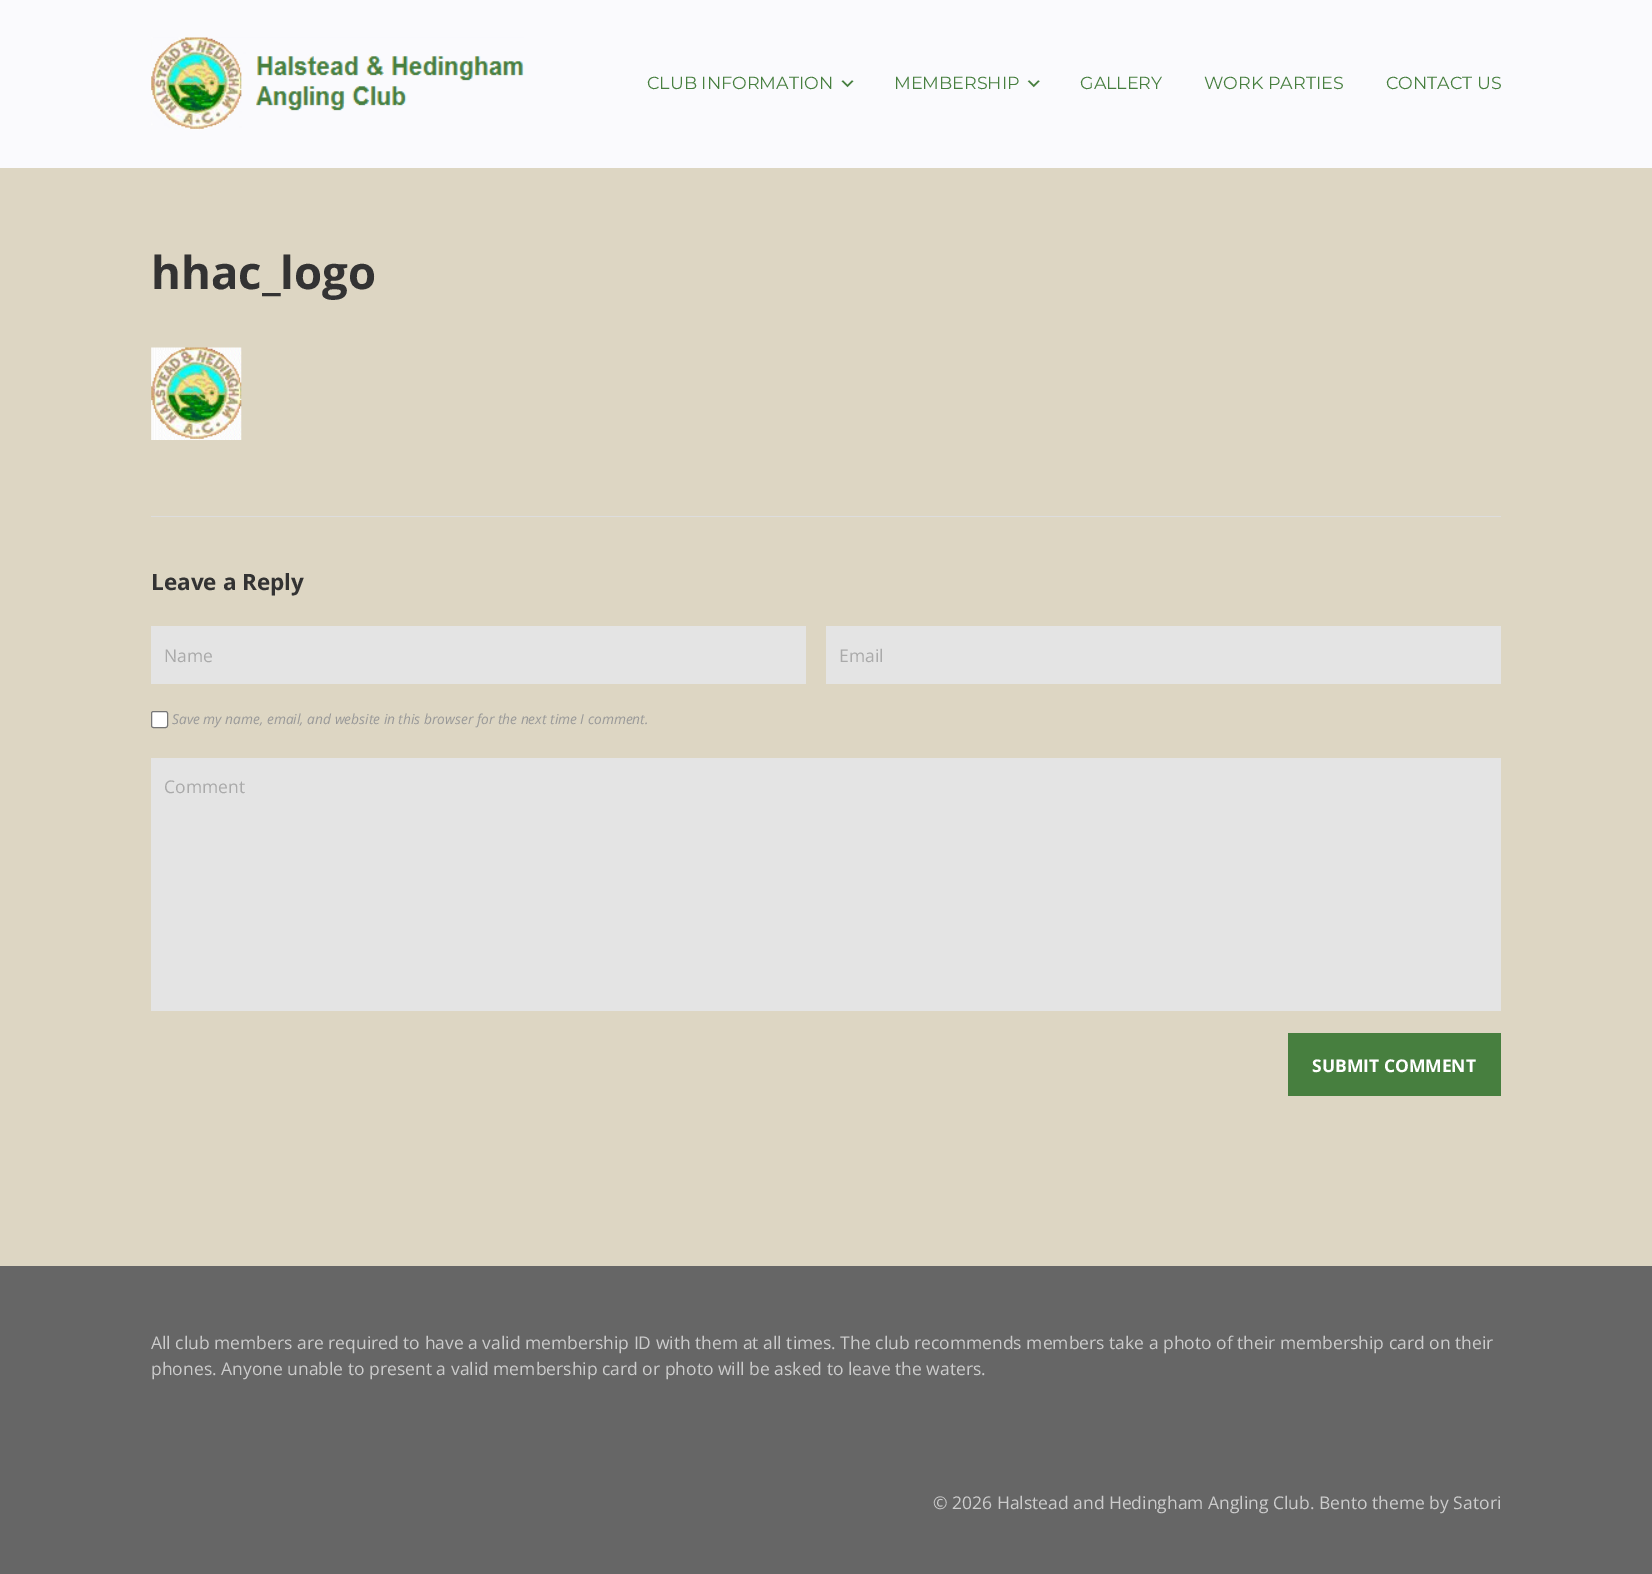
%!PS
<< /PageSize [1652 1574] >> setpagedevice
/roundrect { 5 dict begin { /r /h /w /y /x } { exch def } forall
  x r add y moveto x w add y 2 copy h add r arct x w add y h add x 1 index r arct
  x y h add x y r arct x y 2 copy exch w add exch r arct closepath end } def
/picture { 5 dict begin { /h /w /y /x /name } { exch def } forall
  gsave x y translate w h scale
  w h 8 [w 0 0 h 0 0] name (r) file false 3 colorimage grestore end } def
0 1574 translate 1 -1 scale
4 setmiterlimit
0.4 setgray
0 0 1652 1574 rectfill
0.98 0.98 0.992 setrgbcolor
0 0 1652 168 rectfill
(img1.rgb) 151 37 373 93 picture
/Montserrat-Regular [17.5 0 0 -17.5 0 0] selectfont
0.278 0.498 0.247 setrgbcolor
647 89 moveto (CLUB INFORMATION) show
(img2.rgb) 841 80 13 8 picture
894 89 moveto (MEMBERSHIP) show
(img3.rgb) 1027 80 13 8 picture
1080 89 moveto (GALLERY) show
1204 89 moveto (WORK PARTIES) show
1386 89 moveto (CONTACT US) show
0.867 0.839 0.765 setrgbcolor
0 168 1652 1098 rectfill
/OpenSans-Bold [45.5 0 0 -45.5 0 0] selectfont
0.2 setgray
151 289 moveto (hhac_logo) show
(img4.rgb) 151 347 91 93 picture
0.867 setgray
151 516 1350 1 rectfill
/OpenSans-Bold [22.5 0 0 -22.5 0 0] selectfont
0.2 setgray
151 590 moveto (Leave a Reply) show
0.894 setgray
151 626 655 58 rectfill
/OpenSans-Regular [17.5 0 0 -17.5 0 0] selectfont
0.667 setgray
164 662 moveto (Name) show
0.894 setgray
826 626 675 58 rectfill
0.667 setgray
839 662 moveto (Email) show
1 setgray
151.5 711.5 16 16 2 roundrect gsave fill grestore
0.463 setgray
stroke
/OpenSans-Italic [13.75 0 0 -13.75 0 0] selectfont
0.6 setgray
172 724 moveto (Save my name, email, and website in this browser for the next time I comment.) show
0.894 setgray
151 758 1350 253 rectfill
/OpenSans-Regular [17.5 0 0 -17.5 0 0] selectfont
0.667 setgray
164 793 moveto (Comment) show
0.278 0.498 0.247 setrgbcolor
1288 1033 213 63 rectfill
/OpenSans-Bold [17.5 0 0 -17.5 0 0] selectfont
1 setgray
1312 1072 moveto (SUBMIT COMMENT) show
/OpenSans-Regular [17.5 0 0 -17.5 0 0] selectfont
0.8 setgray
151 1349 moveto (All club members are required to have a valid membership ID with them at all times. The club recommends members take a photo of their membership card on their) show
151 1375 moveto (phones. Anyone unable to present a valid membership card or photo will be asked to leave the waters.) show
933 1509 moveto (© 2026 Halstead and Hedingham Angling Club. Bento theme by Satori) show
showpage
